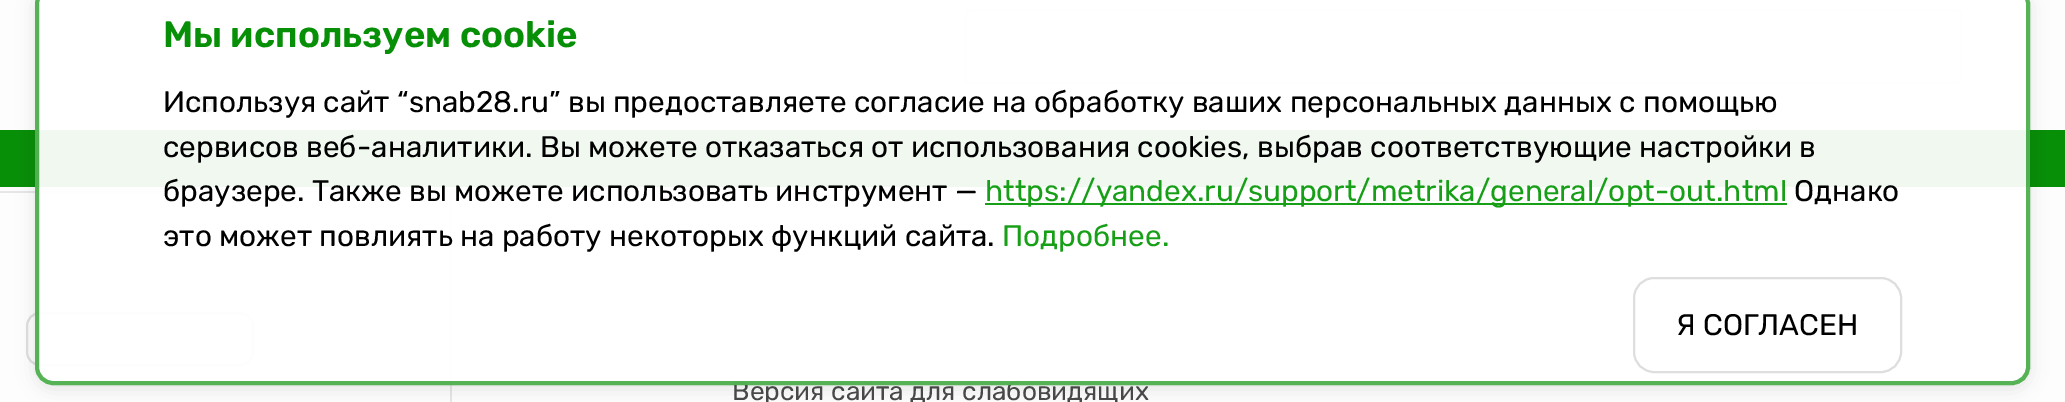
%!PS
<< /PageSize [2065 402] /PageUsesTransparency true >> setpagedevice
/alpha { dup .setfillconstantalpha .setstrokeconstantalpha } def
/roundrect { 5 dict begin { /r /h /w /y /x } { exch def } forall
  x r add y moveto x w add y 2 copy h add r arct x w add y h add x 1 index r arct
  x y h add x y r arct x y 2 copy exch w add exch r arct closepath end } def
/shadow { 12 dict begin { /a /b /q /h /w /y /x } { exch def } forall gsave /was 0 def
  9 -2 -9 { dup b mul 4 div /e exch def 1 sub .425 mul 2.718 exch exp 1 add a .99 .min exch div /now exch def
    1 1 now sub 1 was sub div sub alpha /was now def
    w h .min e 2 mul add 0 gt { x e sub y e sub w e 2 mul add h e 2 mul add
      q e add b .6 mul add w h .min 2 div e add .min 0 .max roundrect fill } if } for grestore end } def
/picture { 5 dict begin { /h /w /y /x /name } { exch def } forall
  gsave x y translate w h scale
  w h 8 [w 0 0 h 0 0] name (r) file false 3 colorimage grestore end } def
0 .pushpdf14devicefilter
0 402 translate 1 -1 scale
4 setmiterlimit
0.992 setgray
0 0 2065 402 rectfill
0.902 setgray
2 setlinewidth
965 10 996 73 6 roundrect stroke
(img1.rgb) 193 95 25 18 picture
0.031 0.561 0.031 setrgbcolor
0 130 2065 57 rectfill
0.902 setgray
450 187 2 215 rectfill
0 191 450 2 rectfill
0.871 setgray
27 313 226 52 13 roundrect stroke
gsave
newpath 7 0 moveto 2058 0 lineto 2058 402 lineto 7 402 lineto closepath 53 -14 moveto 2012 -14 lineto 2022 -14 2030 -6 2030 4 curveto 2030 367 lineto 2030 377 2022 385 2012 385 curveto 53 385 lineto 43 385 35 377 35 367 curveto 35 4 lineto 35 -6 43 -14 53 -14 curveto closepath eoclip newpath
0 setgray
35 -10 1995 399 18 9 0.1 shadow
grestore
/Rubik-Regular [26.25 0 0 -26.25 0 0] selectfont
0.282 setgray
732 400 moveto (Версия сайта для слабовидящих) show
0.94 alpha
1 setgray
35 -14 1995 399 18 roundrect fill
0.69 alpha
0.031 0.561 0.031 setrgbcolor
4 setlinewidth
37 -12 1991 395 16 roundrect stroke
/Rubik-SemiBold [36.75 0 0 -36.75 0 0] selectfont
1 alpha
163 47 moveto (Мы используем cookie) show
/Rubik-Regular [29.75 0 0 -29.75 0 0] selectfont
0 setgray
163 112 moveto (Используя сайт “snab28.ru” вы предоставляете согласие на обработку ваших персональных данных с помощью) show
163 157 moveto (сервисов веб-аналитики. Вы можете отказаться от использования cookies, выбрав соответствующие настройки в) show
163 201 moveto (браузере. Также вы можете использовать инструмент —) show
0.094 0.624 0.094 setrgbcolor
985 203 802 2 rectfill
985 201 moveto (https://yandex.ru/support/metrika/general/opt-out.html) show
0 setgray
1794 201 moveto (Однако) show
163 246 moveto (это может повлиять на работу некоторых функций сайта.) show
0.094 0.624 0.094 setrgbcolor
1002 246 moveto (Подробнее.) show
0.871 setgray
2 setlinewidth
1634 278 267 94 20 roundrect stroke
0 setgray
1676 335 moveto (Я СОГЛАСЕН) show
.poppdf14devicefilter showpage
